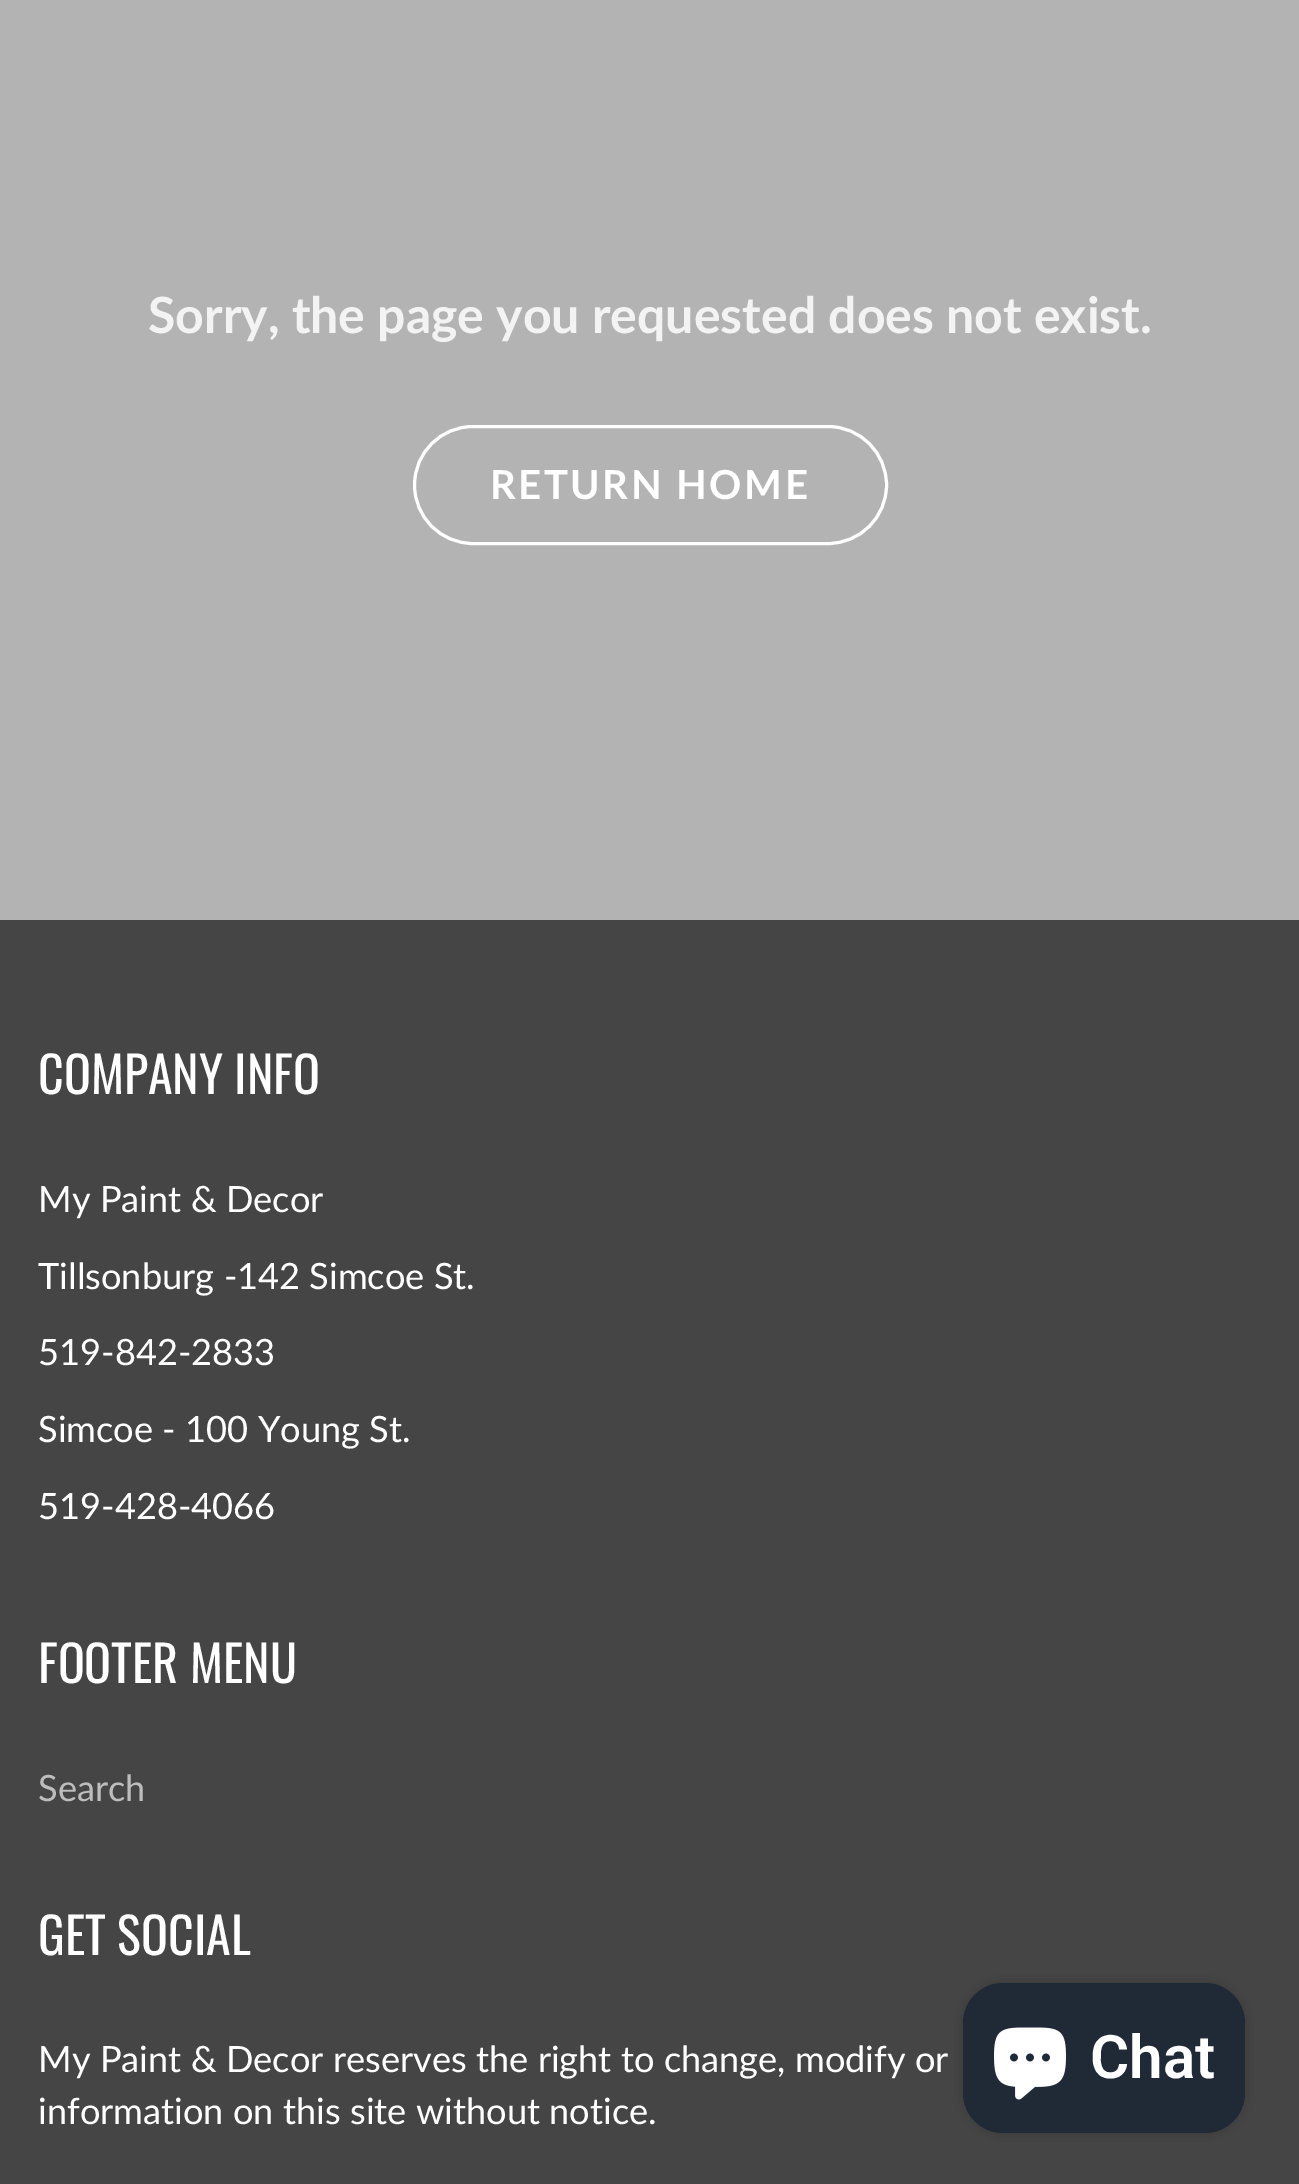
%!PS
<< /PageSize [1299 2184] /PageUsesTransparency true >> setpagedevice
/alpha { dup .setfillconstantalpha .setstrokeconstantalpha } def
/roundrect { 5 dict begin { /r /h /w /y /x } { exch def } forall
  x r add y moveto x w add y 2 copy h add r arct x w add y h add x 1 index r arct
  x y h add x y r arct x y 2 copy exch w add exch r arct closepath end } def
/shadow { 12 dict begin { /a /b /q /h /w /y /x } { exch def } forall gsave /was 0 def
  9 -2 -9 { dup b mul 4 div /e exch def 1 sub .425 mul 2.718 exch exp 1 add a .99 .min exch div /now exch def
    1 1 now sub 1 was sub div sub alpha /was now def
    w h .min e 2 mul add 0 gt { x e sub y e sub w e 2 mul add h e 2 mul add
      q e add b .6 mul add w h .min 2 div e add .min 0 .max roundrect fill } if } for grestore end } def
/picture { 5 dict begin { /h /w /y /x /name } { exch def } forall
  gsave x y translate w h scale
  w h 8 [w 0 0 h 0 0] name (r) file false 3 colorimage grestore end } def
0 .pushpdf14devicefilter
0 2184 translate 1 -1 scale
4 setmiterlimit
0.271 setgray
0 0 1299 2184 rectfill
0.702 setgray
0 0 1299 920 rectfill
/Lato-Bold [50 0 0 -50 0 0] selectfont
0.953 setgray
148 333 moveto (Sorry, the page you requested does not exist.) show
1 setgray
3 setlinewidth
414.5 426.5 472 117 58.5 roundrect stroke
/Lato-Bold [40 0 0 -40 0 0] selectfont
490 499 moveto 2.5 0 (RETURN HOME) ashow
/Oswald-Regular [50 0 0 -50 0 0] selectfont
38 1094 moveto (COMPANY INFO) show
/Lato-Regular [36.25 0 0 -36.25 0 0] selectfont
38 1212 moveto (My Paint & Decor) show
38 1289 moveto (Tillsonburg -142 Simcoe St.) show
38 1365 moveto (519-842-2833) show
38 1442 moveto (Simcoe - 100 Young St.) show
38 1519 moveto (519-428-4066) show
/Oswald-Regular [50 0 0 -50 0 0] selectfont
38 1683 moveto (FOOTER MENU) show
/Lato-Regular [36.25 0 0 -36.25 0 0] selectfont
0.741 setgray
38 1801 moveto (Search) show
/Oswald-Regular [50 0 0 -50 0 0] selectfont
1 setgray
38 1955 moveto (GET SOCIAL) show
/Lato-Regular [36.25 0 0 -36.25 0 0] selectfont
38 2072 moveto (My Paint & Decor reserves the right to change, modify or) show
38 2124 moveto (information on this site without notice.) show
0 setgray
963 1983 282 150 40 6 0.15 shadow
0.125 0.165 0.212 setrgbcolor
963 1983 282 150 40 roundrect fill
(img1.rgb) 994 2027 72 73 picture
/Roboto-SemiBold [60 0 0 -60 0 0] selectfont
1 setgray
1090 2078 moveto (Chat) show
.poppdf14devicefilter showpage
